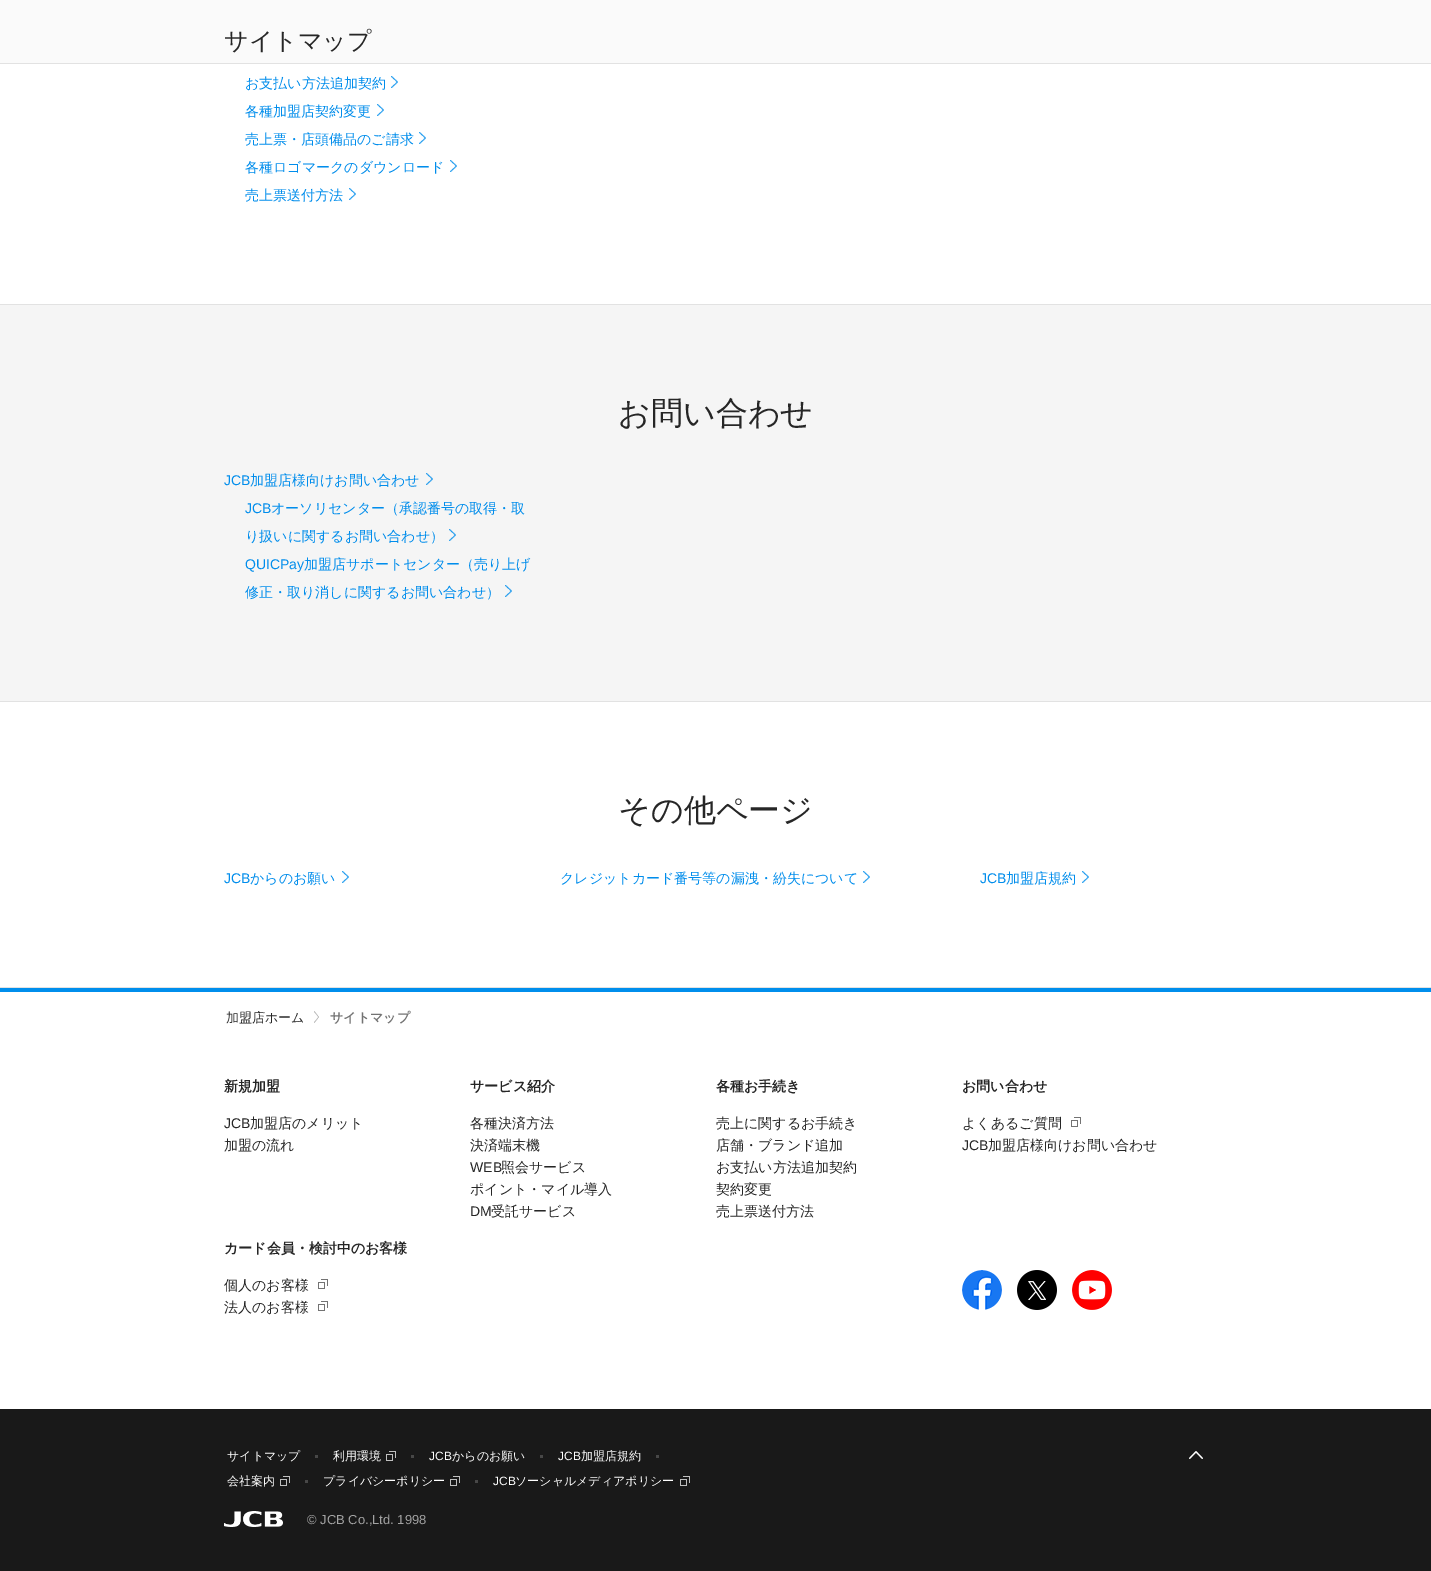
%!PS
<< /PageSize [1431 1571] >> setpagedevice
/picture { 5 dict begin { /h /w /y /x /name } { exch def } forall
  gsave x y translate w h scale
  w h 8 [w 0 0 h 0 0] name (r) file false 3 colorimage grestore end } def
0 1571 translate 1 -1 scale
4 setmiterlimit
0.961 setgray
0 0 1431 1571 rectfill
0.98 setgray
0 0 1431 63 rectfill
0.886 setgray
0 63 1431 1 rectfill
/WenQuanYiZenHei-Medium [24 0 0 -24 0 0] selectfont
0.149 setgray
224 49 moveto (サイトマップ) show
1 setgray
0 64 1431 240 rectfill
0.886 setgray
0 304 1431 1 rectfill
/WenQuanYiZenHei-Medium [14 0 0 -14 0 0] selectfont
0 0.553 0.925 setrgbcolor
245 88 moveto (お支払い方法追加契約) show
(img1.rgb) 391 76 7 12 picture
245 116 moveto (各種加盟店契約変更) show
(img1.rgb) 377 104 7 12 picture
245 144 moveto (売上票・店頭備品のご請求) show
(img1.rgb) 419 132 7 12 picture
245 172 moveto (各種ロゴマークのダウンロード) show
(img1.rgb) 450 160 7 12 picture
245 200 moveto (売上票送付方法) show
(img2.rgb) 349 188 7 12 picture
0.886 setgray
0 701 1431 1 rectfill
/WenQuanYiZenHei-Medium [32 0 0 -32 0 0] selectfont
0.149 setgray
618 424 moveto (お問い合わせ) show
/LiberationSans-Regular [14 0 0 -14 0 0] selectfont
0 0.553 0.925 setrgbcolor
224 485 moveto (JCB) show
/WenQuanYiZenHei-Medium [14 0 0 -14 0 0] selectfont
250 485 moveto (加盟店様向けお問い合わせ) show
(img3.rgb) 426 473 7 12 picture
/LiberationSans-Regular [14 0 0 -14 0 0] selectfont
245 513 moveto (JCB) show
/WenQuanYiZenHei-Medium [14 0 0 -14 0 0] selectfont
271 513 moveto (オーソリセンター（承認番号の取得・取) show
245 541 moveto (り扱いに関するお問い合わせ）) show
(img3.rgb) 449 529 7 12 picture
/LiberationSans-Regular [14 0 0 -14 0 0] selectfont
245 569 moveto (QUICPay) show
/WenQuanYiZenHei-Medium [14 0 0 -14 0 0] selectfont
304 569 moveto (加盟店サポートセンター（売り上げ) show
245 597 moveto (修正・取り消しに関するお問い合わせ）) show
(img3.rgb) 505 585 7 12 picture
1 setgray
0 702 1431 285 rectfill
0.886 setgray
0 987 1431 1 rectfill
/WenQuanYiZenHei-Medium [32 0 0 -32 0 0] selectfont
0.149 setgray
618 821 moveto (その他ページ) show
/LiberationSans-Regular [14 0 0 -14 0 0] selectfont
0 0.553 0.925 setrgbcolor
224 883 moveto (JCB) show
/WenQuanYiZenHei-Medium [14 0 0 -14 0 0] selectfont
250 883 moveto (からのお願い) show
(img2.rgb) 342 871 7 12 picture
560 883 moveto (クレジットカード番号等の漏洩・紛失について) show
(img1.rgb) 863 871 7 12 picture
/LiberationSans-Regular [14 0 0 -14 0 0] selectfont
980 883 moveto (JCB) show
/WenQuanYiZenHei-Medium [14 0 0 -14 0 0] selectfont
1006 883 moveto (加盟店規約) show
(img2.rgb) 1082 871 7 12 picture
1 setgray
0 992 1431 417 rectfill
0 0.557 0.925 setrgbcolor
0 988 1431 4 rectfill
/WenQuanYiZenHei-Medium [13 0 0 -13 0 0] selectfont
0.149 setgray
226 1022 moveto (加盟店ホーム) show
(img4.rgb) 314 1011 5 12 picture
/WenQuanYiZenHei-Bold [13 0 0 -13 0 0] selectfont
0.451 setgray
330 1022 moveto (サイトマップ) show
/WenQuanYiZenHei-Bold [14 0 0 -14 0 0] selectfont
0.149 setgray
224 1091 moveto (新規加盟) show
/LiberationSans-Regular [14 0 0 -14 0 0] selectfont
224 1128 moveto (JCB) show
/WenQuanYiZenHei-Medium [14 0 0 -14 0 0] selectfont
250 1128 moveto (加盟店のメリット) show
224 1150 moveto (加盟の流れ) show
/WenQuanYiZenHei-Bold [14 0 0 -14 0 0] selectfont
470 1091 moveto (サービス紹介) show
/WenQuanYiZenHei-Medium [14 0 0 -14 0 0] selectfont
470 1128 moveto (各種決済方法) show
470 1150 moveto (決済端末機) show
/LiberationSans-Regular [14 0 0 -14 0 0] selectfont
470 1172 moveto (WEB) show
/WenQuanYiZenHei-Medium [14 0 0 -14 0 0] selectfont
501 1172 moveto (照会サービス) show
470 1194 moveto (ポイント・マイル導入) show
/LiberationSans-Regular [14 0 0 -14 0 0] selectfont
470 1216 moveto (DM) show
/WenQuanYiZenHei-Medium [14 0 0 -14 0 0] selectfont
491 1216 moveto (受託サービス) show
/WenQuanYiZenHei-Bold [14 0 0 -14 0 0] selectfont
716 1091 moveto (各種お手続き) show
/WenQuanYiZenHei-Medium [14 0 0 -14 0 0] selectfont
716 1128 moveto (売上に関するお手続き) show
716 1150 moveto (店舗・ブランド追加) show
716 1172 moveto (お支払い方法追加契約) show
716 1194 moveto (契約変更) show
716 1216 moveto (売上票送付方法) show
/WenQuanYiZenHei-Bold [14 0 0 -14 0 0] selectfont
962 1091 moveto (お問い合わせ) show
/WenQuanYiZenHei-Medium [14 0 0 -14 0 0] selectfont
962 1128 moveto (よくあるご質問) show
(img5.rgb) 1071 1117 10 10 picture
/LiberationSans-Regular [14 0 0 -14 0 0] selectfont
962 1150 moveto (JCB) show
/WenQuanYiZenHei-Medium [14 0 0 -14 0 0] selectfont
988 1150 moveto (加盟店様向けお問い合わせ) show
/WenQuanYiZenHei-Bold [14 0 0 -14 0 0] selectfont
224 1253 moveto (カード会員・検討中のお客様) show
/WenQuanYiZenHei-Medium [14 0 0 -14 0 0] selectfont
224 1290 moveto (個人のお客様) show
(img5.rgb) 318 1279 10 10 picture
224 1312 moveto (法人のお客様) show
(img5.rgb) 318 1301 10 10 picture
(img6.rgb) 962 1270 40 40 picture
(img7.rgb) 1017 1270 40 40 picture
(img8.rgb) 1072 1270 40 40 picture
0.098 setgray
0 1409 1431 162 rectfill
/WenQuanYiZenHei-Medium [12 0 0 -12 0 0] selectfont
1 setgray
227 1460 moveto (サイトマップ) show
0.278 setgray
315 1455 3 3 rectfill
1 setgray
333 1460 moveto (利用環境) show
(img9.rgb) 386 1451 10 10 picture
0.278 setgray
411 1455 3 3 rectfill
/LiberationSans-Regular [12 0 0 -12 0 0] selectfont
1 setgray
429 1460 moveto (JCB) show
/WenQuanYiZenHei-Medium [12 0 0 -12 0 0] selectfont
452 1460 moveto (からのお願い) show
0.278 setgray
540 1455 3 3 rectfill
/LiberationSans-Regular [12 0 0 -12 0 0] selectfont
1 setgray
558 1460 moveto (JCB) show
/WenQuanYiZenHei-Medium [12 0 0 -12 0 0] selectfont
581 1460 moveto (加盟店規約) show
0.278 setgray
656 1455 3 3 rectfill
1 setgray
227 1485 moveto (会社案内) show
(img9.rgb) 280 1476 10 10 picture
0.278 setgray
305 1480 3 3 rectfill
1 setgray
323 1485 moveto (プライバシーポリシー) show
(img9.rgb) 450 1476 10 10 picture
0.278 setgray
475 1480 3 3 rectfill
/LiberationSans-Regular [12 0 0 -12 0 0] selectfont
1 setgray
493 1485 moveto (JCB) show
/WenQuanYiZenHei-Medium [12 0 0 -12 0 0] selectfont
515 1485 moveto (ソーシャルメディアポリシー) show
(img9.rgb) 680 1476 10 10 picture
(img10.rgb) 1189 1451 14 8 picture
(img11.rgb) 224 1511 59 16 picture
/LiberationSans-Regular [13 0 0 -13 0 0] selectfont
0.639 setgray
307 1524 moveto (© JCB Co.,Ltd. 1998) show
showpage
